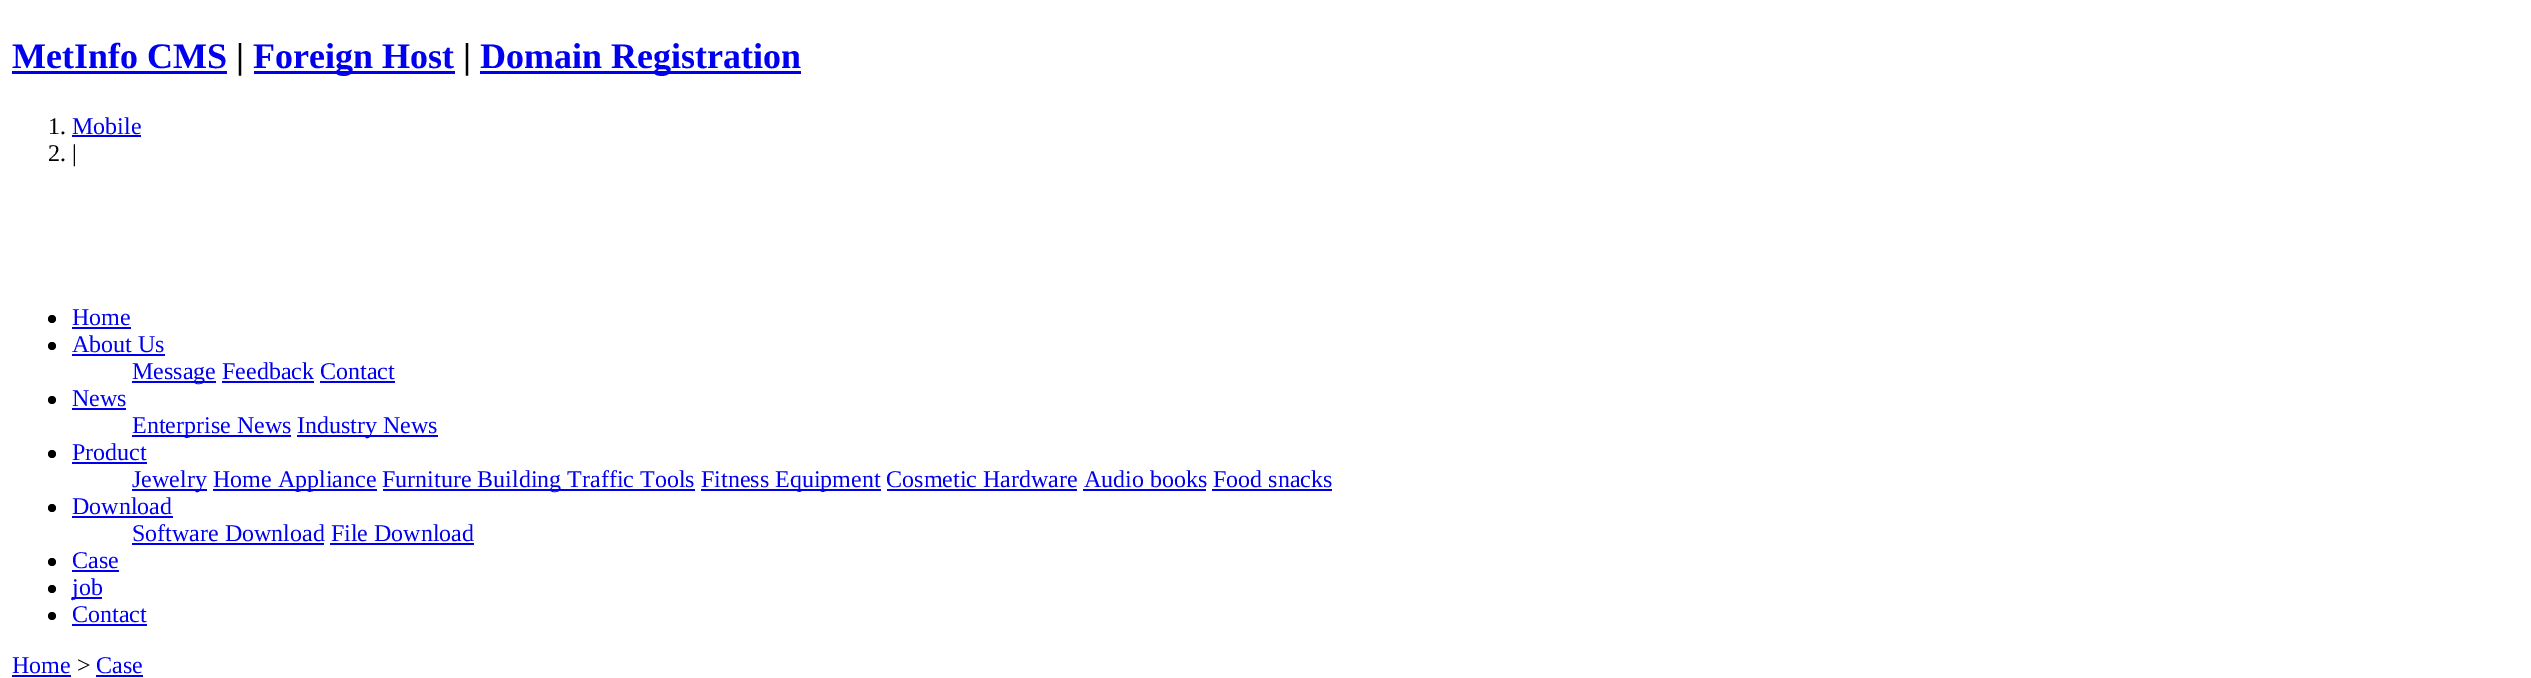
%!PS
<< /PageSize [2531 678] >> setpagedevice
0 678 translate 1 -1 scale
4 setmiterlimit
1 setgray
0 0 2531 678 rectfill
/LiberationSerif-Bold [36 0 0 -36 0 0] selectfont
0 0 0.933 setrgbcolor
12 68 moveto (MetInfo CMS) show
12 71 215 3 rectfill
0 setgray
236 68 moveto (|) show
0 0 0.933 setrgbcolor
254 71 201 3 rectfill
253 68 moveto (Foreign Host) show
0 setgray
463 68 moveto (|) show
0 0 0.933 setrgbcolor
480 71 321 3 rectfill
480 68 moveto (Domain Registration) show
/LiberationSerif-Regular [24 0 0 -24 0 0] selectfont
0 setgray
48 134 moveto (1.) show
0 0 0.933 setrgbcolor
72 134 moveto (Mobile) show
72 135 69 2 rectfill
0 setgray
48 161 moveto (2. |) show
newpath 52 319 4 0 360 arc closepath fill
0 0 0.933 setrgbcolor
72 325 moveto (Home) show
72 327 59 2 rectfill
0 setgray
newpath 52 346 4 0 360 arc closepath fill
0 0 0.933 setrgbcolor
72 352 moveto (About Us) show
72 354 93 2 rectfill
132 381 84 2 rectfill
132 379 moveto (Message Feedback Contact) show
222 381 92 2 rectfill
320 381 75 2 rectfill
0 setgray
newpath 52 400 4 0 360 arc closepath fill
0 0 0.933 setrgbcolor
72 406 moveto (News) show
72 408 54 2 rectfill
132 435 159 2 rectfill
132 433 moveto (Enterprise News) show
297 435 141 2 rectfill
297 433 moveto (Industry News) show
0 setgray
newpath 52 454 4 0 360 arc closepath fill
0 0 0.933 setrgbcolor
72 460 moveto (Product) show
72 462 75 2 rectfill
132 489 75 2 rectfill
132 487 moveto (Jewelry) show
213 489 164 2 rectfill
213 487 moveto (Home Appliance) show
383 489 312 2 rectfill
382 487 moveto (Furniture Building Traffic Tools) show
701 489 180 2 rectfill
701 487 moveto (Fitness Equipment Cosmetic Hardware Audio books Food snacks) show
887 489 190 2 rectfill
1083 489 123 2 rectfill
1212 489 120 2 rectfill
0 setgray
newpath 52 508 4 0 360 arc closepath fill
0 0 0.933 setrgbcolor
72 514 moveto (Download) show
72 516 101 2 rectfill
132 541 moveto (Software Download File Download) show
132 543 192 2 rectfill
330 543 144 2 rectfill
0 setgray
newpath 52 562 4 0 360 arc closepath fill
0 0 0.933 setrgbcolor
72 568 moveto (Case) show
72 570 47 2 rectfill
0 setgray
newpath 52 589 4 0 360 arc closepath fill
0 0 0.933 setrgbcolor
72 597 30 2 rectfill
72 595 moveto (job) show
0 setgray
newpath 52 616 4 0 360 arc closepath fill
0 0 0.933 setrgbcolor
72 622 moveto (Contact) show
72 624 75 2 rectfill
12 673 moveto (Home) show
12 675 59 2 rectfill
0 setgray
77 673 moveto (>) show
0 0 0.933 setrgbcolor
96 673 moveto (Case) show
96 675 47 2 rectfill
showpage
